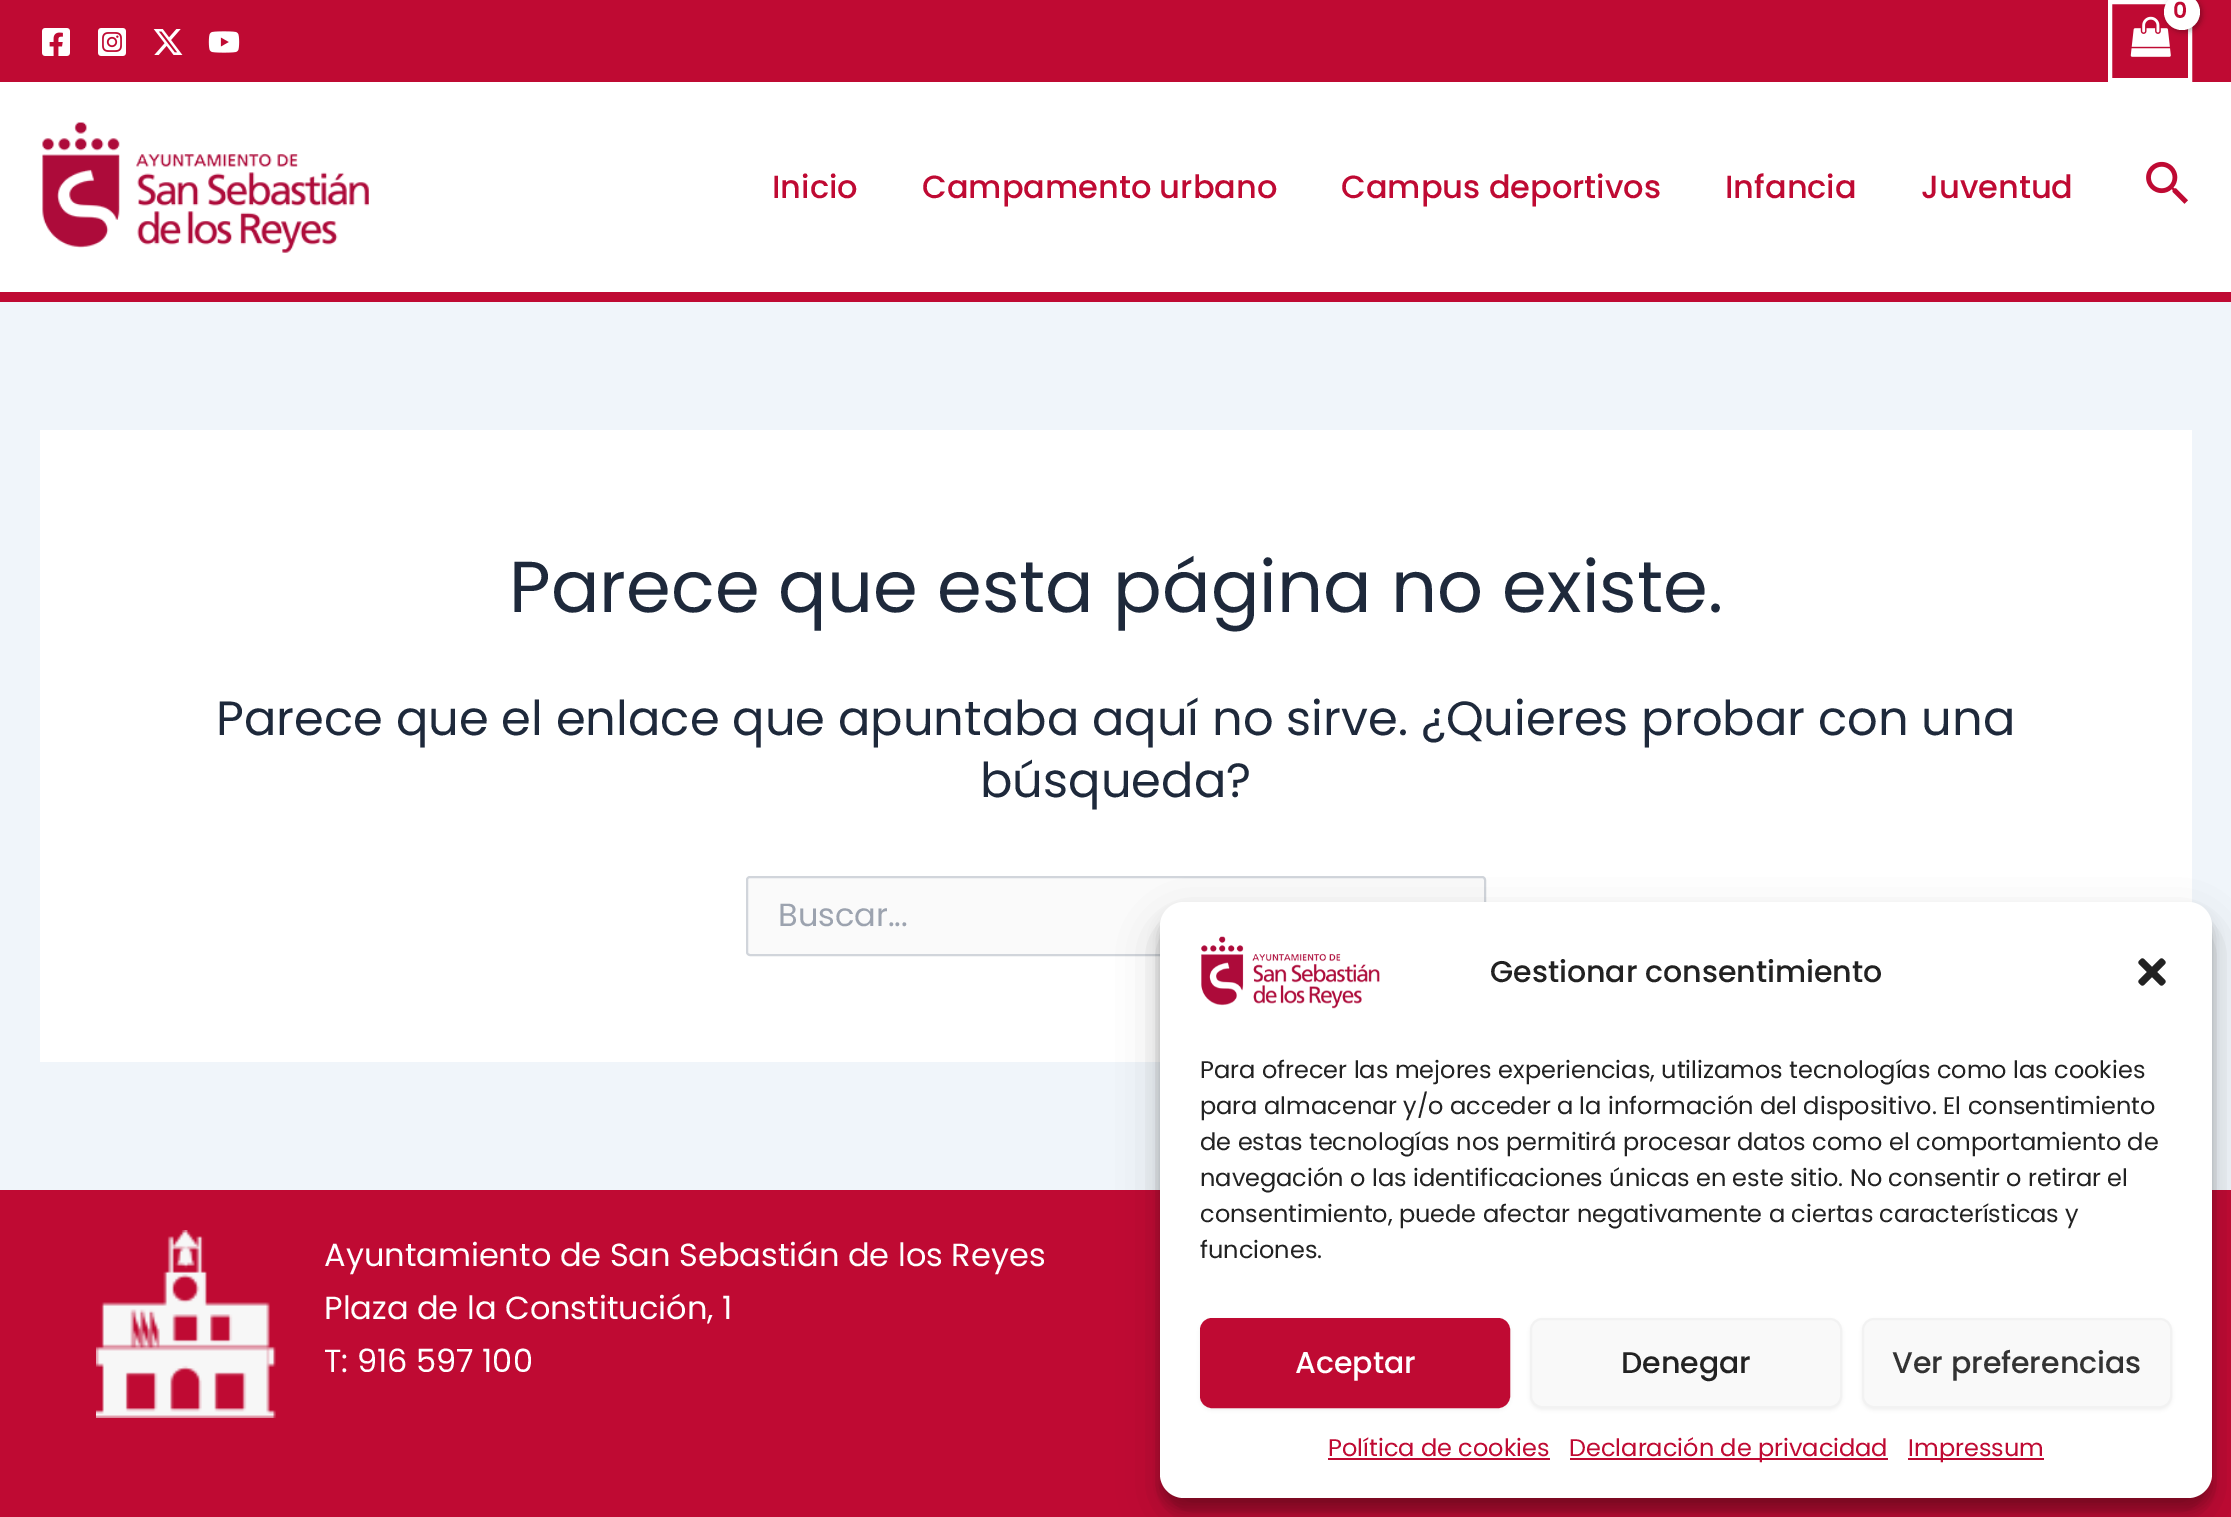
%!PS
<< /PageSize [2231 1517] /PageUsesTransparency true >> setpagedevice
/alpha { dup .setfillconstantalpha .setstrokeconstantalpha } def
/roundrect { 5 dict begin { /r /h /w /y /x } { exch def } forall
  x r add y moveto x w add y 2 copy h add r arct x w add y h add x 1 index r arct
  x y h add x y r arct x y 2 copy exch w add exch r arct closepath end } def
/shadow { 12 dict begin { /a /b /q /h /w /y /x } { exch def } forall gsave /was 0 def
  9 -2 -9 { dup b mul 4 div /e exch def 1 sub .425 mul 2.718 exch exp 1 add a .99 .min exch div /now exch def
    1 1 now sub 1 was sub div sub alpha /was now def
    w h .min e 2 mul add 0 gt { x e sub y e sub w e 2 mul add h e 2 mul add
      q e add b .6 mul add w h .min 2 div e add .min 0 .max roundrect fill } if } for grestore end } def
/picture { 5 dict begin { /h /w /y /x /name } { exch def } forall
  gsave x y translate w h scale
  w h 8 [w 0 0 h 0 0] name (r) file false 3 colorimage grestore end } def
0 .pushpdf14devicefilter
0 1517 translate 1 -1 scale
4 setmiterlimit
0.941 0.961 0.98 setrgbcolor
0 0 2231 1517 rectfill
0.749 0.039 0.2 setrgbcolor
0 0 2231 82 rectfill
1 setgray
4 setlinewidth
2110 2 80 78 rectstroke
(img1.rgb) 2130 16 41 41 picture
0 setgray
2166 -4 36 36 18 3 0.3 shadow
1 setgray
newpath 2182 12 18 0 360 arc closepath fill
/Poppins-SemiBold [22 0 0 -22 0 0] selectfont
0.749 0.039 0.2 setrgbcolor
2173 18 moveto -1 0 (0) ashow
(img2.rgb) 42 28 28 28 picture
(img3.rgb) 98 28 28 28 picture
(img4.rgb) 153 29 30 26 picture
(img5.rgb) 208 31 32 22 picture
1 setgray
0 82 2231 210 rectfill
0.749 0.039 0.2 setrgbcolor
0 292 2231 10 rectfill
(img6.rgb) 42 122 327 131 picture
/Poppins-Medium [32 0 0 -32 0 0] selectfont
772 198 moveto (Inicio) show
922 198 moveto (Campamento urbano) show
1341 198 moveto (Campus deportivos) show
1725 198 moveto (Infancia) show
1921 198 moveto (Juventud) show
(img7.rgb) 2146 161 42 43 picture
1 setgray
40 430 2152 632 rectfill
/Poppins-Regular [72 0 0 -72 0 0] selectfont
0.118 0.161 0.231 setrgbcolor
509 612 moveto (Parece que esta página no existe.) show
/Poppins-Regular [48 0 0 -48 0 0] selectfont
216 735 moveto (Parece que el enlace que apuntaba aquí no sirve. ¿Quieres probar con una) show
980 797 moveto (búsqueda?) show
0.98 setgray
747 877 738 78 3 roundrect gsave fill grestore
0.82 0.835 0.859 setrgbcolor
2 setlinewidth
stroke
/Poppins-Regular [32 0 0 -32 0 0] selectfont
0.612 0.639 0.686 setrgbcolor
778 926 moveto (Buscar...) show
0.749 0.039 0.2 setrgbcolor
0 1190 2231 327 rectfill
(img8.rgb) 96 1230 180 188 picture
1 setgray
324 1266 moveto (Ayuntamiento de San Sebastián de los Reyes) show
324 1319 moveto (Plaza de la Constitución, 1) show
324 1372 moveto (T: 916 597 100) show
0 setgray
1160 914 1052 596 24 6 0.23 shadow
1160 922 1052 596 24 20 0.19 shadow
1 setgray
1160 902 1052 596 24 roundrect fill
(img9.rgb) 1201 936 179 73 picture
/Poppins-Medium [30 0 0 -30 0 0] selectfont
0.133 setgray
1490 982 moveto (Gestionar consentimiento) show
(img10.rgb) 2138 958 28 28 picture
/Poppins-Regular [24 0 0 -24 0 0] selectfont
1200 1078 moveto (Para ofrecer las mejores experiencias, utilizamos tecnologías como las cookies) show
1200 1114 moveto (para almacenar y/o acceder a la información del dispositivo. El consentimiento) show
1200 1150 moveto (de estas tecnologías nos permitirá procesar datos como el comportamiento de) show
1200 1186 moveto (navegación o las identificaciones únicas en este sitio. No consentir o retirar el) show
1200 1222 moveto (consentimiento, puede afectar negativamente a ciertas características y) show
1200 1258 moveto (funciones.) show
0 setgray
1200 1320 310 90 12 2 0.05 shadow
0.749 0.039 0.2 setrgbcolor
1201 1319 308 88 11 roundrect gsave fill grestore
stroke
/Poppins-Medium [30 0 0 -30 0 0] selectfont
1 setgray
1295 1373 moveto (Aceptar) show
0 setgray
1530 1320 312 90 12 2 0.05 shadow
0.976 setgray
1531 1319 310 88 11 roundrect gsave fill grestore
0.949 setgray
stroke
0.133 setgray
1621 1373 moveto (Denegar) show
0 setgray
1862 1320 310 90 12 2 0.05 shadow
0.976 setgray
1863 1319 308 88 11 roundrect gsave fill grestore
0.949 setgray
stroke
0.2 setgray
1892 1373 moveto (Ver preferencias) show
/Poppins-Regular [24 0 0 -24 0 0] selectfont
0.749 0.039 0.2 setrgbcolor
1328 1456 moveto (Política de cookies) show
1328 1458 222 2 rectfill
1570 1458 318 2 rectfill
1569 1456 moveto (Declaración de privacidad) show
1908 1458 136 2 rectfill
1908 1456 moveto (Impressum) show
.poppdf14devicefilter showpage
